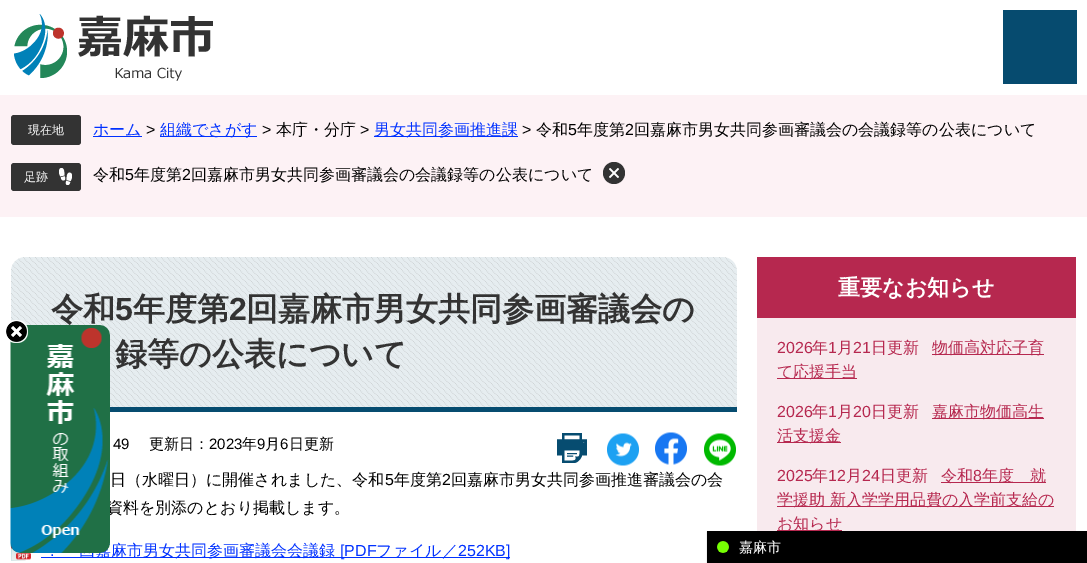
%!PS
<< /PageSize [1087 563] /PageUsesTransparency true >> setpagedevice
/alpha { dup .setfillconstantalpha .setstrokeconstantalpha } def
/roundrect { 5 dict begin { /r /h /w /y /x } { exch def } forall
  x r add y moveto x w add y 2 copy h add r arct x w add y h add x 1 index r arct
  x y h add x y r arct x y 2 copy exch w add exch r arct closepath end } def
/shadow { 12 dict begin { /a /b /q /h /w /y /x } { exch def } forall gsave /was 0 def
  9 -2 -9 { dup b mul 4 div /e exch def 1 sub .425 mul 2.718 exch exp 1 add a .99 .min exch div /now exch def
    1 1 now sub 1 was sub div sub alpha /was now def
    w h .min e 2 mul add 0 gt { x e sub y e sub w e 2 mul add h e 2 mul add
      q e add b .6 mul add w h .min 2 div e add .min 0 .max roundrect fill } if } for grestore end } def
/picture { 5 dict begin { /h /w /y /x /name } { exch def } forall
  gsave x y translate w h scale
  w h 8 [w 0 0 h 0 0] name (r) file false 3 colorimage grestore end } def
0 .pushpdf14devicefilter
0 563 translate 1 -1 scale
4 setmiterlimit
1 setgray
0 0 1087 563 rectfill
(img1.rgb) 14 14 199 67 picture
0.024 0.294 0.435 setrgbcolor
1003 10 74 74 rectfill
0.992 0.949 0.961 setrgbcolor
0 95 1087 122 rectfill
0.2 setgray
11 115 70 30 3 roundrect fill
/WenQuanYiZenHei-Medium [12 0 0 -12 0 0] selectfont
1 setgray
28 134 moveto (現在地) show
0 0.192 1 setrgbcolor
93 136 49 1 rectfill
/WenQuanYiZenHei-Medium [16 0 0 -16 0 0] selectfont
93 135 moveto (ホーム) show
/LiberationSans-Regular [16 0 0 -16 0 0] selectfont
0 setgray
146 135 moveto (>) show
0 0.192 1 setrgbcolor
160 136 97 1 rectfill
/WenQuanYiZenHei-Medium [16 0 0 -16 0 0] selectfont
160 135 moveto (組織でさがす) show
/LiberationSans-Regular [16 0 0 -16 0 0] selectfont
0 setgray
262 135 moveto (>) show
/WenQuanYiZenHei-Medium [16 0 0 -16 0 0] selectfont
276 135 moveto (本庁・分庁) show
/LiberationSans-Regular [16 0 0 -16 0 0] selectfont
360 135 moveto (>) show
0 0.192 1 setrgbcolor
374 136 144 1 rectfill
/WenQuanYiZenHei-Medium [16 0 0 -16 0 0] selectfont
374 135 moveto (男女共同参画推進課) show
/LiberationSans-Regular [16 0 0 -16 0 0] selectfont
0 setgray
522 135 moveto (>) show
/WenQuanYiZenHei-Medium [16 0 0 -16 0 0] selectfont
536 135 moveto (令和) show
/LiberationSans-Regular [16 0 0 -16 0 0] selectfont
568 135 moveto (5) show
/WenQuanYiZenHei-Medium [16 0 0 -16 0 0] selectfont
577 135 moveto (年度第) show
/LiberationSans-Regular [16 0 0 -16 0 0] selectfont
625 135 moveto (2) show
/WenQuanYiZenHei-Medium [16 0 0 -16 0 0] selectfont
634 135 moveto (回嘉麻市男女共同参画審議会の会議録等の公表について) show
0.2 setgray
11 163 70 28 3 roundrect fill
(img2.rgb) 59 168 13 17 picture
/WenQuanYiZenHei-Medium [12 0 0 -12 0 0] selectfont
1 setgray
24 181 moveto (足跡) show
/WenQuanYiZenHei-Medium [16 0 0 -16 0 0] selectfont
0 setgray
93 180 moveto (令和) show
/LiberationSans-Regular [16 0 0 -16 0 0] selectfont
125 180 moveto (5) show
/WenQuanYiZenHei-Medium [16 0 0 -16 0 0] selectfont
134 180 moveto (年度第) show
/LiberationSans-Regular [16 0 0 -16 0 0] selectfont
182 180 moveto (2) show
/WenQuanYiZenHei-Medium [16 0 0 -16 0 0] selectfont
191 180 moveto (回嘉麻市男女共同参画審議会の会議録等の公表について) show
0.2 setgray
newpath 614 173 11 0 360 arc closepath fill
(img3.rgb) 609 168 10 10 picture
0.902 0.929 0.941 setrgbcolor
newpath 25 257 moveto 723 257 lineto 730.5 257 737 263.5 737 271 curveto 737 412 lineto 11 412 lineto 11 271 lineto 11 263.5 17.5 257 25 257 curveto closepath fill
(img4.rgb) 11 257 726 150 picture
0.024 0.298 0.439 setrgbcolor
110 407 627 5 rectfill
/WenQuanYiZenHei-Bold [32 0 0 -32 0 0] selectfont
0.2 setgray
51 320 moveto (令和) show
/LiberationSans-Bold [32 0 0 -32 0 0] selectfont
115 320 moveto (5) show
/WenQuanYiZenHei-Bold [32 0 0 -32 0 0] selectfont
133 320 moveto (年度第) show
/LiberationSans-Bold [32 0 0 -32 0 0] selectfont
229 320 moveto (2) show
/WenQuanYiZenHei-Bold [32 0 0 -32 0 0] selectfont
246 320 moveto (回嘉麻市男女共同参画審議会の) show
115 365 moveto (録等の公表について) show
/LiberationSans-Regular [15 0 0 -15 0 0] selectfont
0 setgray
113 449 moveto (49) show
/WenQuanYiZenHei-Medium [15 0 0 -15 0 0] selectfont
149 449 moveto (更新日：) show
/LiberationSans-Regular [15 0 0 -15 0 0] selectfont
209 449 moveto (2023) show
/WenQuanYiZenHei-Medium [15 0 0 -15 0 0] selectfont
242 449 moveto (年) show
/LiberationSans-Regular [15 0 0 -15 0 0] selectfont
257 449 moveto (9) show
/WenQuanYiZenHei-Medium [15 0 0 -15 0 0] selectfont
265 449 moveto (月) show
/LiberationSans-Regular [15 0 0 -15 0 0] selectfont
280 449 moveto (6) show
/WenQuanYiZenHei-Medium [15 0 0 -15 0 0] selectfont
289 449 moveto (日更新) show
(img5.rgb) 557 433 30 30 picture
(img6.rgb) 607 433 32 33 picture
(img7.rgb) 655 432 32 33 picture
(img8.rgb) 704 433 32 33 picture
/WenQuanYiZenHei-Medium [16 0 0 -16 0 0] selectfont
110 485 moveto (日（水曜日）に開催されました、令和) show
/LiberationSans-Regular [16 0 0 -16 0 0] selectfont
385 485 moveto (5) show
/WenQuanYiZenHei-Medium [16 0 0 -16 0 0] selectfont
394 485 moveto (年度第) show
/LiberationSans-Regular [16 0 0 -16 0 0] selectfont
442 485 moveto (2) show
/WenQuanYiZenHei-Medium [16 0 0 -16 0 0] selectfont
451 485 moveto (回嘉麻市男女共同参画推進審議会の会) show
107 513 moveto (資料を別添のとおり掲載します。) show
(img9.rgb) 11 545 20 16 picture
/LiberationSans-Regular [16 0 0 -16 0 0] selectfont
0 0.192 1 setrgbcolor
50 556 moveto (.) show
41 557 469 1 rectfill
/WenQuanYiZenHei-Medium [16 0 0 -16 0 0] selectfont
79 556 moveto (回嘉麻市男女共同参画審議会会議録) show
/LiberationSans-Regular [16 0 0 -16 0 0] selectfont
340 556 moveto ([PDF) show
/WenQuanYiZenHei-Medium [16 0 0 -16 0 0] selectfont
376 556 moveto (ファイル／) show
/LiberationSans-Regular [16 0 0 -16 0 0] selectfont
458 556 moveto (252KB]) show
0.714 0.157 0.31 setrgbcolor
757 257 319 61 rectfill
/WenQuanYiZenHei-Bold [22 0 0 -22 0 0] selectfont
1 setgray
838 295 moveto (重要なお知らせ) show
0.973 0.918 0.933 setrgbcolor
757 318 319 213 rectfill
/LiberationSans-Regular [16 0 0 -16 0 0] selectfont
0.714 0.157 0.31 setrgbcolor
777 353 moveto (2026) show
/WenQuanYiZenHei-Medium [16 0 0 -16 0 0] selectfont
812 353 moveto (年) show
/LiberationSans-Regular [16 0 0 -16 0 0] selectfont
828 353 moveto (1) show
/WenQuanYiZenHei-Medium [16 0 0 -16 0 0] selectfont
837 353 moveto (月) show
/LiberationSans-Regular [16 0 0 -16 0 0] selectfont
853 353 moveto (21) show
/WenQuanYiZenHei-Medium [16 0 0 -16 0 0] selectfont
871 353 moveto (日更新) show
932 354 112 1 rectfill
932 353 moveto (物価高対応子育) show
777 378 80 1 rectfill
777 377 moveto (て応援手当) show
/LiberationSans-Regular [16 0 0 -16 0 0] selectfont
777 417 moveto (2026) show
/WenQuanYiZenHei-Medium [16 0 0 -16 0 0] selectfont
812 417 moveto (年) show
/LiberationSans-Regular [16 0 0 -16 0 0] selectfont
828 417 moveto (1) show
/WenQuanYiZenHei-Medium [16 0 0 -16 0 0] selectfont
837 417 moveto (月) show
/LiberationSans-Regular [16 0 0 -16 0 0] selectfont
853 417 moveto (20) show
/WenQuanYiZenHei-Medium [16 0 0 -16 0 0] selectfont
871 417 moveto (日更新) show
932 418 112 1 rectfill
932 417 moveto (嘉麻市物価高生) show
777 442 64 1 rectfill
777 441 moveto (活支援金) show
/LiberationSans-Regular [16 0 0 -16 0 0] selectfont
777 481 moveto (2025) show
/WenQuanYiZenHei-Medium [16 0 0 -16 0 0] selectfont
812 481 moveto (年) show
/LiberationSans-Regular [16 0 0 -16 0 0] selectfont
828 481 moveto (12) show
/WenQuanYiZenHei-Medium [16 0 0 -16 0 0] selectfont
846 481 moveto (月) show
/LiberationSans-Regular [16 0 0 -16 0 0] selectfont
862 481 moveto (24) show
/WenQuanYiZenHei-Medium [16 0 0 -16 0 0] selectfont
880 481 moveto (日更新) show
941 482 105 1 rectfill
941 481 moveto (令和) show
/LiberationSans-Regular [16 0 0 -16 0 0] selectfont
973 481 moveto (8) show
/WenQuanYiZenHei-Medium [16 0 0 -16 0 0] selectfont
982 481 moveto (年度　就) show
777 506 277 1 rectfill
777 505 moveto (学援助 新入学学用品費の入学前支給の) show
777 530 65 1 rectfill
777 529 moveto (お知らせ) show
(img11.rgb) 10 325 100 228 picture
(img10.rgb) 6 320 22 23 picture
0 setgray
707 532 380 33 0 0.5 0.2 shadow
(img12.rgb) 707 531 380 32 picture
.poppdf14devicefilter showpage
